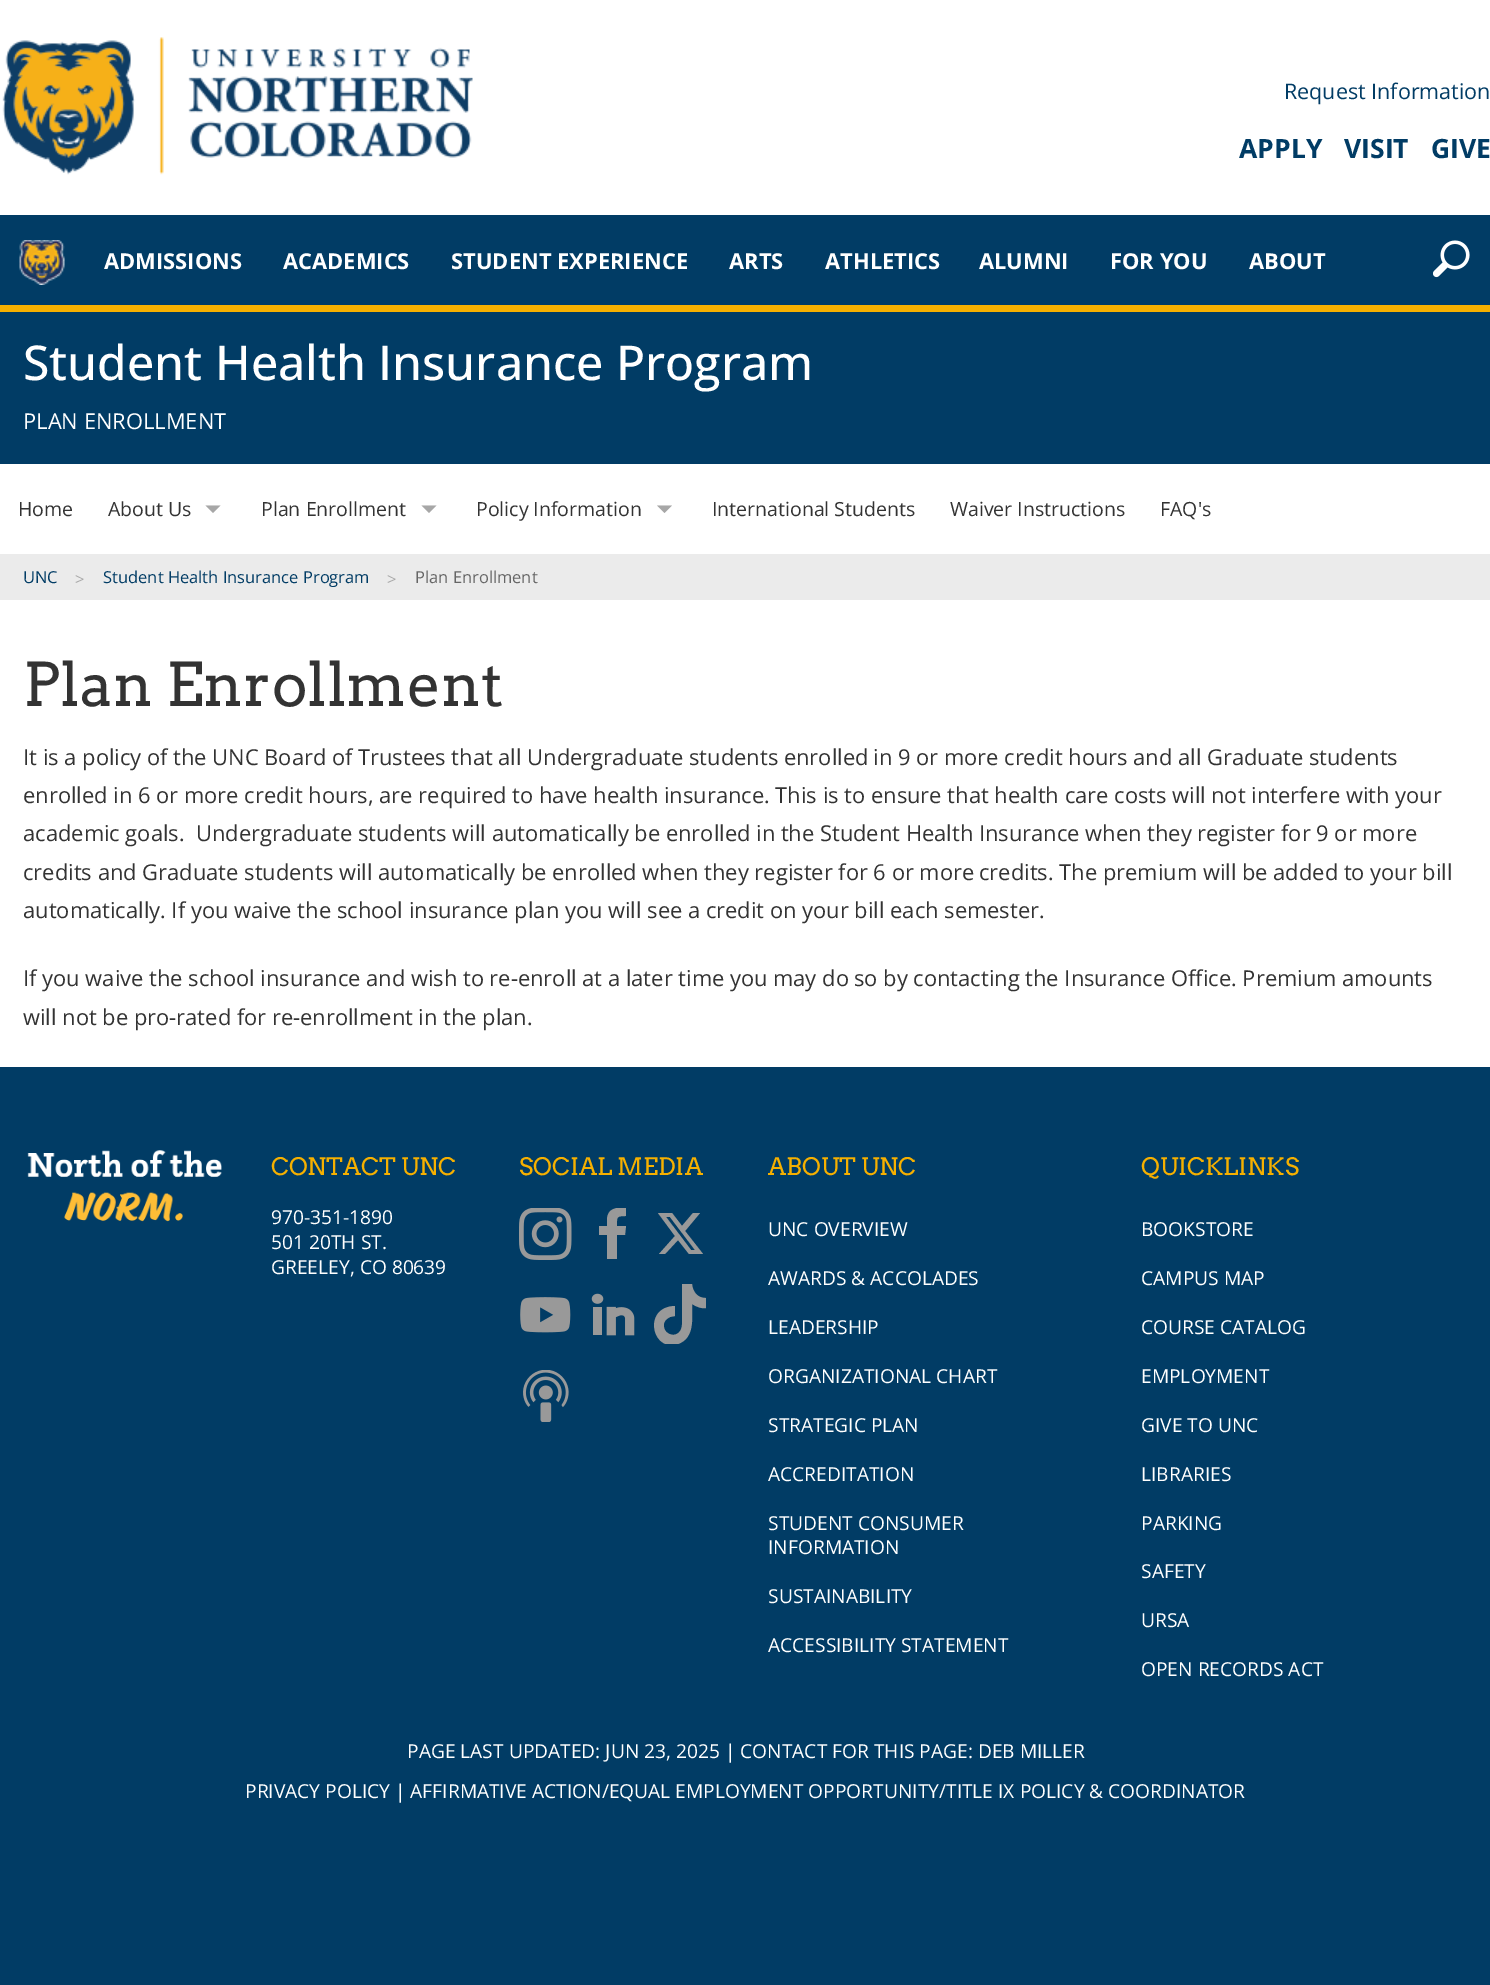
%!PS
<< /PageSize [1490 1985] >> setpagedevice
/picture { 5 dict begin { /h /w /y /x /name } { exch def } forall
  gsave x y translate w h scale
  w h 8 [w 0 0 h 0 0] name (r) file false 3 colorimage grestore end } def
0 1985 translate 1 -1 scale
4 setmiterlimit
1 setgray
0 0 1490 1985 rectfill
(img1.rgb) 2 37 471 138 picture
/OpenSans-Regular [21.5 0 0 -21.5 0 0] selectfont
0.004 0.235 0.396 setrgbcolor
1284 99 moveto (Request Information) show
/OpenSans-Bold [26.5 0 0 -26.5 0 0] selectfont
1239 158 moveto (APPLY) show
1344 158 moveto (VISIT) show
1431 158 moveto (GIVE) show
0 215 1490 90 rectfill
0.965 0.69 0 setrgbcolor
0 305 1490 7 rectfill
(img2.rgb) 19 240 46 45 picture
/OpenSans-Bold [21.9 0 0 -21.9 0 0] selectfont
1 setgray
104 269 moveto (ADMISSIONS) show
283 269 moveto (ACADEMICS) show
451 269 moveto (STUDENT EXPERIENCE) show
729 269 moveto (ARTS) show
825 269 moveto (ATHLETICS) show
979 269 moveto (ALUMNI) show
1110 269 moveto (FOR YOU) show
1249 269 moveto (ABOUT) show
(img3.rgb) 1433 240 37 38 picture
0.004 0.235 0.396 setrgbcolor
0 312 1490 152 rectfill
/OpenSans-Medium [48 0 0 -48 0 0] selectfont
1 setgray
23 380 moveto (Student Health Insurance Program) show
/OpenSans-Regular [21.9 0 0 -21.9 0 0] selectfont
23 429 moveto (PLAN ENROLLMENT) show
/OpenSans-Regular [19.5 0 0 -19.5 0 0] selectfont
0.2 setgray
18 516 moveto (Home) show
108 516 moveto (About Us) show
0.655 setgray
newpath 205.5 505.5 moveto 220.5 505.5 lineto 213 513 lineto closepath fill
0.2 setgray
261 516 moveto (Plan Enrollment) show
0.655 setgray
newpath 421.5 505.5 moveto 436.5 505.5 lineto 429 513 lineto closepath fill
0.2 setgray
476 516 moveto (Policy Information) show
0.655 setgray
newpath 657 505.5 moveto 672 505.5 lineto 664.5 513 lineto closepath fill
0.2 setgray
712 516 moveto (International Students) show
950 516 moveto (Waiver Instructions) show
1160 516 moveto (FAQ's) show
0.922 setgray
0 554 1490 46 rectfill
/OpenSans-Regular [16.5 0 0 -16.5 0 0] selectfont
0.004 0.235 0.396 setrgbcolor
23 583 moveto (UNC) show
0.667 setgray
75 585 moveto (>) show
0.004 0.235 0.396 setrgbcolor
103 583 moveto (Student Health Insurance Program) show
0.667 setgray
387 585 moveto (>) show
0.4 setgray
415 583 moveto (Plan Enrollment) show
/Arvo-Regular [60 0 0 -60 0 0] selectfont
0.2 setgray
23 706 moveto (Plan Enrollment) show
/OpenSans-Regular [21.9 0 0 -21.9 0 0] selectfont
23 765 moveto (It is a policy of the UNC Board of Trustees that all Undergraduate students enrolled) show
873 765 moveto (in 9 or more credit hours and all Graduate students) show
23 803 moveto (enrolled in 6 or more credit hours, are required to have health insurance. This is to ensure that health care costs will) show
1211 803 moveto (not interfere with your) show
23 841 moveto (academic goals.  Undergraduate students will automatically be enrolled in the Student Health Insurance when they register for 9 or more) show
23 880 moveto (credits and Graduate students will automatically be enrolled when they register for 6 or more) show
979 880 moveto (credits. The premium will be added to your bill) show
23 918 moveto (automatically. If you waive the school insurance plan you will see a credit on your bill each semester.) show
23 986 moveto (If you waive the school insurance and wish to re-enroll at a later time you may do) show
854 986 moveto (so by contacting the Insurance Office. Premium amounts) show
23 1025 moveto (will not be pro-rated for re-enrollment in the plan.) show
0.004 0.235 0.396 setrgbcolor
0 1067 1490 918 rectfill
(img4.rgb) 27 1150 195 72 picture
/Arvo-Regular [24 0 0 -24 0 0] selectfont
0.965 0.69 0 setrgbcolor
271 1175 moveto (CONTACT UNC) show
/OpenSans-Regular [19.2 0 0 -19.2 0 0] selectfont
1 setgray
271 1224 moveto (970-351-1890) show
271 1249 moveto (501 20TH ST.) show
271 1274 moveto (GREELEY, CO 80639) show
/Arvo-Regular [24 0 0 -24 0 0] selectfont
0.965 0.69 0 setrgbcolor
519 1175 moveto (SOCIAL MEDIA) show
(img5.rgb) 519 1208 53 52 picture
gsave
587 1208 52 52 rectclip
0.6 setgray
newpath 607 1220 moveto 607 1226 lineto 599 1226 lineto 599 1235 lineto 607 1235 lineto 607 1259 lineto 617 1259 lineto 617 1235 lineto 625 1235 lineto 626 1226 lineto 617 1226 lineto 617 1217 616 1216 626 1216 curveto 626 1208 lineto 617 1207 607 1208 607 1220 curveto closepath fill
grestore
0.6 setgray
newpath 693 1213 moveto 700 1213 lineto 685 1231 lineto 703 1254 lineto 689 1254 lineto 678 1240 lineto 665 1254 lineto 659 1254 lineto 675 1236 lineto 658 1213 lineto 672 1213 lineto 682 1226 lineto closepath 691 1250 moveto 695 1250 lineto 670 1217 lineto 666 1217 lineto closepath fill
(img6.rgb) 520 1297 51 36 picture
(img7.rgb) 591 1293 44 43 picture
gsave
654 1284 53 60 rectclip
newpath 692 1284 moveto 693 1293 698 1298 706 1298 curveto 706 1308 lineto 702 1309 697 1307 692 1304 curveto 692 1318 695 1338 678 1344 curveto 652 1353 642 1307 675 1306 curveto 675 1316 lineto 670 1317 lineto 666 1319 663 1322 664 1327 curveto 665 1337 684 1340 682 1320 curveto 682 1284 lineto closepath eofill
grestore
(img8.rgb) 523 1370 46 52 picture
0.965 0.69 0 setrgbcolor
768 1175 moveto (ABOUT UNC) show
/OpenSans-Regular [19.2 0 0 -19.2 0 0] selectfont
1 setgray
768 1236 moveto (UNC OVERVIEW) show
768 1285 moveto (AWARDS & ACCOLADES) show
768 1334 moveto (LEADERSHIP) show
768 1383 moveto (ORGANIZATIONAL CHART) show
768 1432 moveto (STRATEGIC PLAN) show
768 1481 moveto (ACCREDITATION) show
768 1530 moveto (STUDENT CONSUMER) show
768 1554 moveto (INFORMATION) show
768 1603 moveto (SUSTAINABILITY) show
768 1652 moveto (ACCESSIBILITY STATEMENT) show
/Arvo-Regular [24 0 0 -24 0 0] selectfont
0.965 0.69 0 setrgbcolor
1141 1175 moveto (QUICKLINKS) show
/OpenSans-Regular [19.2 0 0 -19.2 0 0] selectfont
1 setgray
1141 1236 moveto (BOOKSTORE) show
1141 1285 moveto (CAMPUS MAP) show
1141 1334 moveto (COURSE CATALOG) show
1141 1383 moveto (EMPLOYMENT) show
1141 1432 moveto (GIVE TO UNC) show
1141 1481 moveto (LIBRARIES) show
1141 1530 moveto (PARKING) show
1141 1578 moveto (SAFETY) show
1141 1627 moveto (URSA) show
1141 1676 moveto (OPEN RECORDS ACT) show
407 1758 moveto (PAGE LAST UPDATED: JUN 23, 2025 | CONTACT FOR THIS PAGE: DEB MILLER) show
245 1798 moveto (PRIVACY POLICY | AFFIRMATIVE ACTION/EQUAL EMPLOYMENT OPPORTUNITY/TITLE IX POLICY & COORDINATOR) show
showpage
